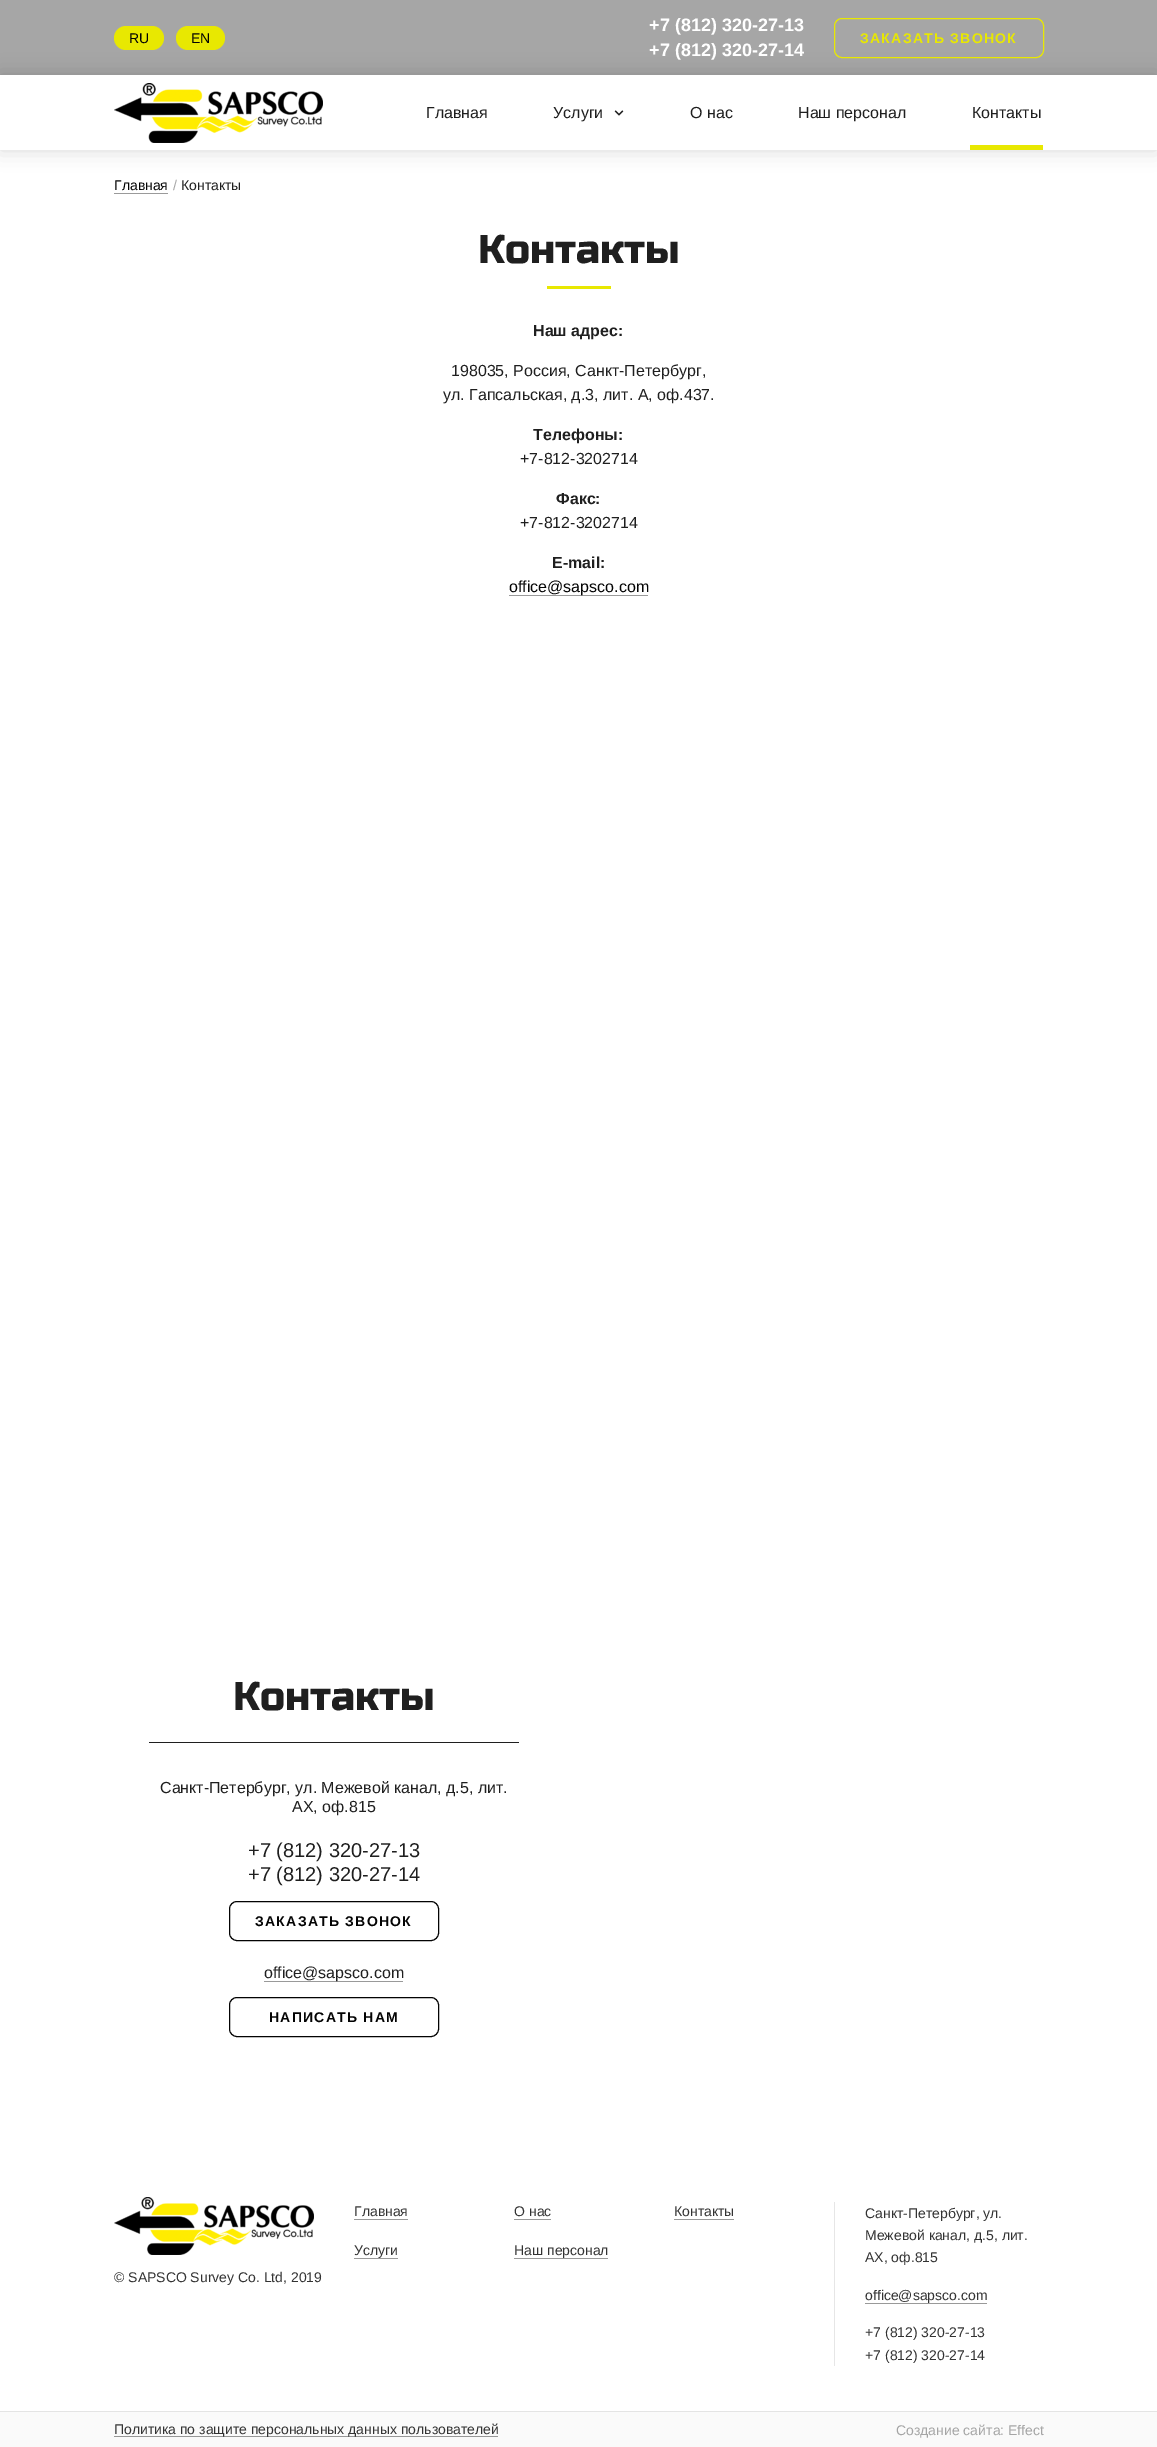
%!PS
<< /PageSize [1157 2447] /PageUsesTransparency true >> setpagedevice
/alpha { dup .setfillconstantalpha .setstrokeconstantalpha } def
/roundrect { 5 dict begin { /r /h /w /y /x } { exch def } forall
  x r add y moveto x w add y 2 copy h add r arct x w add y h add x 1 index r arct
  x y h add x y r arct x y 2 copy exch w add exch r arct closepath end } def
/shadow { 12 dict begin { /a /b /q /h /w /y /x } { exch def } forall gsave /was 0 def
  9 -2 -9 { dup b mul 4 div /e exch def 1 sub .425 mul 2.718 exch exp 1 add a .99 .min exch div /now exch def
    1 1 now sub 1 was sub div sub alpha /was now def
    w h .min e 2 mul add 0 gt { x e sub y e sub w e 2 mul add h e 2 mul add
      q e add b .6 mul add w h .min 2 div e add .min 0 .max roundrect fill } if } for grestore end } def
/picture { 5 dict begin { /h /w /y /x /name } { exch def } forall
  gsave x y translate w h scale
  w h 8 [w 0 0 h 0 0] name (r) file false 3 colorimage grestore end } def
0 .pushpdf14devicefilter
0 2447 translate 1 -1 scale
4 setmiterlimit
1 setgray
0 0 1157 2447 rectfill
0.651 setgray
0 0 1157 75 rectfill
0 setgray
0 75 1157 75 0 10 0.15 shadow
0.91 0.91 0.004 setrgbcolor
114 26 50 24 12 roundrect fill
/LiberationSans-Regular [14 0 0 -14 0 0] selectfont
0.012 setgray
129 43 moveto (RU) show
0.91 0.91 0.004 setrgbcolor
176 26 49 24 12 roundrect fill
0.012 setgray
191 43 moveto (EN) show
/LiberationSans-Bold [18 0 0 -18 0 0] selectfont
1 setgray
649 31 moveto (+7 \(812\) 320-27-13) show
649 56 moveto (+7 \(812\) 320-27-14) show
0.91 0.91 0.004 setrgbcolor
834.5 18.5 209 39 7.5 roundrect stroke
/LiberationSans-Bold [14 0 0 -14 0 0] selectfont
860 43 moveto 1.25 0 (ЗАКАЗАТЬ ЗВОНОК) ashow
1 setgray
0 75 1157 75 rectfill
(img1.rgb) 114 83 209 60 picture
/LiberationSans-Regular [16 0 0 -16 0 0] selectfont
0.122 setgray
426 118 moveto (Главная) show
553 118 moveto (Услуги) show
(img2.rgb) 614 110 10 6 picture
690 118 moveto (О нас) show
798 118 moveto (Наш персонал) show
972 118 moveto (Контакты) show
0.91 0.91 0.004 setrgbcolor
970 145 73 5 rectfill
/LiberationSans-Regular [14 0 0 -14 0 0] selectfont
0.012 setgray
114 190 moveto (Главная) show
0.604 setgray
114 193 54 1 rectfill
0.647 setgray
173 190 moveto (/) show
0.122 setgray
181 190 moveto (Контакты) show
/RussoOne-Regular [40 0 0 -40 0 0] selectfont
478 263 moveto (Контакты) show
0.91 0.91 0.004 setrgbcolor
547 286 64 3 rectfill
/LiberationSans-Bold [16 0 0 -16 0 0] selectfont
0.122 setgray
533 336 moveto (Наш адрес:) show
/LiberationSans-Regular [16 0 0 -16 0 0] selectfont
451 376 moveto (198035, Россия, Санкт-Петербург,) show
443 400 moveto (ул. Гапсальская, д.3, лит. А, оф.437.) show
/LiberationSans-Bold [16 0 0 -16 0 0] selectfont
533 440 moveto (Телефоны:) show
/LiberationSans-Regular [16 0 0 -16 0 0] selectfont
520 464 moveto (+7-812-3202714) show
/LiberationSans-Bold [16 0 0 -16 0 0] selectfont
556 504 moveto (Факс:) show
/LiberationSans-Regular [16 0 0 -16 0 0] selectfont
520 528 moveto (+7-812-3202714) show
/LiberationSans-Bold [16 0 0 -16 0 0] selectfont
552 568 moveto (E-mail:) show
0.604 setgray
509 595 139 1 rectfill
/LiberationSans-Regular [16 0 0 -16 0 0] selectfont
0.012 setgray
509 592 moveto (office@sapsco.com) show
0.122 setgray
149 1742 370 1 rectfill
/RussoOne-Regular [40 0 0 -40 0 0] selectfont
233 1710 moveto (Контакты) show
/LiberationSans-Regular [16 0 0 -16 0 0] selectfont
160 1793 moveto (Санкт-Петербург, ул. Межевой канал, д.5, лит.) show
292 1812 moveto (АХ, оф.815) show
/LiberationSans-Regular [20 0 0 -20 0 0] selectfont
248 1857 moveto (+7 \(812\) 320-27-13) show
248 1881 moveto (+7 \(812\) 320-27-14) show
0.012 setgray
229.5 1901.5 209 39 7.5 roundrect stroke
/LiberationSans-Bold [14 0 0 -14 0 0] selectfont
255 1926 moveto 1.25 0 (ЗАКАЗАТЬ ЗВОНОК) ashow
0.6 setgray
264 1981 139 1 rectfill
/LiberationSans-Regular [16 0 0 -16 0 0] selectfont
0.122 setgray
264 1978 moveto (office@sapsco.com) show
0.012 setgray
229.5 1997.5 209 39 7.5 roundrect stroke
/LiberationSans-Bold [14 0 0 -14 0 0] selectfont
269 2022 moveto 1.25 0 (НАПИСАТЬ НАМ) ashow
(img3.rgb) 114 2197 200 58 picture
/LiberationSans-Regular [14 0 0 -14 0 0] selectfont
0.2 setgray
114 2282 moveto (© SAPSCO Survey Co. Ltd, 2019) show
354 2216 moveto (Главная) show
0.6 setgray
354 2219 54 1 rectfill
0.2 setgray
514 2216 moveto (О нас) show
0.6 setgray
514 2219 37 1 rectfill
0.2 setgray
674 2216 moveto (Контакты) show
0.6 setgray
674 2219 60 1 rectfill
0.2 setgray
354 2255 moveto (Услуги) show
0.6 setgray
354 2258 44 1 rectfill
0.2 setgray
514 2255 moveto (Наш персонал) show
0.6 setgray
514 2258 94 1 rectfill
0.902 setgray
834 2202 1 164 rectfill
0.2 setgray
865 2218 moveto (Санкт-Петербург, ул.) show
865 2240 moveto (Межевой канал, д.5, лит.) show
865 2262 moveto (АХ, оф.815) show
865 2300 moveto (office@sapsco.com) show
0.6 setgray
865 2303 122 1 rectfill
0.2 setgray
865 2337 moveto (+7 \(812\) 320-27-13) show
865 2360 moveto (+7 \(812\) 320-27-14) show
0.98 setgray
0 2412 1157 35 rectfill
0.894 setgray
0 2411 1157 1 rectfill
0.588 setgray
114 2436 384 1 rectfill
0.2 setgray
114 2434 moveto (Политика по защите персональных данных пользователей) show
0.647 setgray
896 2435 moveto (Создание сайта: Effect) show
.poppdf14devicefilter showpage
